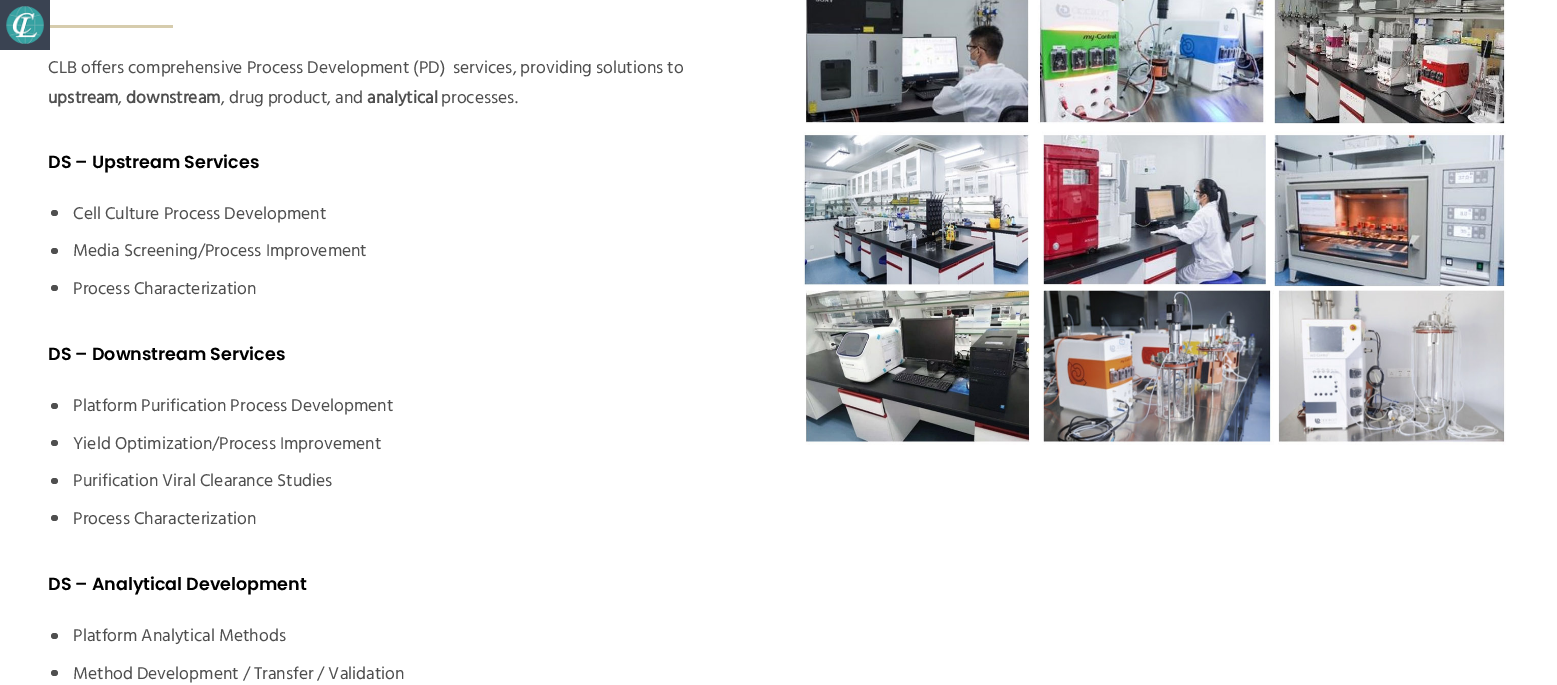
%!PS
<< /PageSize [1557 685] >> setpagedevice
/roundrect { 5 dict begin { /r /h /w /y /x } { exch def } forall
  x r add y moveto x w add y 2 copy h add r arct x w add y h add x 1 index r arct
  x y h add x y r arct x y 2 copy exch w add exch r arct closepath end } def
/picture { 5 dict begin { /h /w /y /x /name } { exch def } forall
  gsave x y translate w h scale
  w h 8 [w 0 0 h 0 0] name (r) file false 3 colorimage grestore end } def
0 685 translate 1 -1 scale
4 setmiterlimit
1 setgray
0 0 1557 685 rectfill
0.839 0.8 0.678 setrgbcolor
48 25 125 3 rectfill
0.227 0.263 0.322 setrgbcolor
0 0 50 50 rectfill
(img1.rgb) 6 6 38 38 picture
/HindSiliguri-Regular [17.5 0 0 -17.5 0 0] selectfont
0.31 setgray
48 73 moveto (CLB offers comprehensive Process Development \(PD\)  services, providing solutions to) show
/HindSiliguri-Bold [17.5 0 0 -17.5 0 0] selectfont
48 103 moveto (upstream) show
/HindSiliguri-Regular [17.5 0 0 -17.5 0 0] selectfont
118 103 moveto (,) show
/HindSiliguri-Bold [17.5 0 0 -17.5 0 0] selectfont
126 103 moveto (downstream) show
/HindSiliguri-Regular [17.5 0 0 -17.5 0 0] selectfont
221 103 moveto (, drug product, and) show
/HindSiliguri-Bold [17.5 0 0 -17.5 0 0] selectfont
367 103 moveto (analytical) show
/HindSiliguri-Regular [17.5 0 0 -17.5 0 0] selectfont
441 103 moveto (processes.) show
/Poppins-SemiBold [17.5 0 0 -17.5 0 0] selectfont
0 setgray
48 168 moveto (DS – Upstream Services) show
0.31 setgray
51 210 7 6 3 roundrect fill
/HindSiliguri-Regular [17.5 0 0 -17.5 0 0] selectfont
73 219 moveto (Cell Culture Process Development) show
51 248 7 6 3 roundrect fill
73 256 moveto (Media Screening/Process Improvement) show
51 285 7 6 3 roundrect fill
73 294 moveto (Process Characterization) show
/Poppins-SemiBold [17.5 0 0 -17.5 0 0] selectfont
0 setgray
48 360 moveto (DS – Downstream Services) show
0.31 setgray
51 403 7 6 3 roundrect fill
/HindSiliguri-Regular [17.5 0 0 -17.5 0 0] selectfont
73 411 moveto (Platform Purification Process Development) show
51 440 7 6 3 roundrect fill
73 449 moveto (Yield Optimization/Process Improvement) show
51 478 7 6 3 roundrect fill
73 486 moveto (Purification Viral Clearance Studies) show
51 515 7 6 3 roundrect fill
73 524 moveto (Process Characterization) show
/Poppins-SemiBold [17.5 0 0 -17.5 0 0] selectfont
0 setgray
48 590 moveto (DS – Analytical Development) show
0.31 setgray
51 633 7 6 3 roundrect fill
/HindSiliguri-Regular [17.5 0 0 -17.5 0 0] selectfont
73 641 moveto (Platform Analytical Methods) show
51 670 7 6 3 roundrect fill
73 679 moveto (Method Development / Transfer / Validation) show
(img2.rgb) 803 0 703 445 picture
showpage
